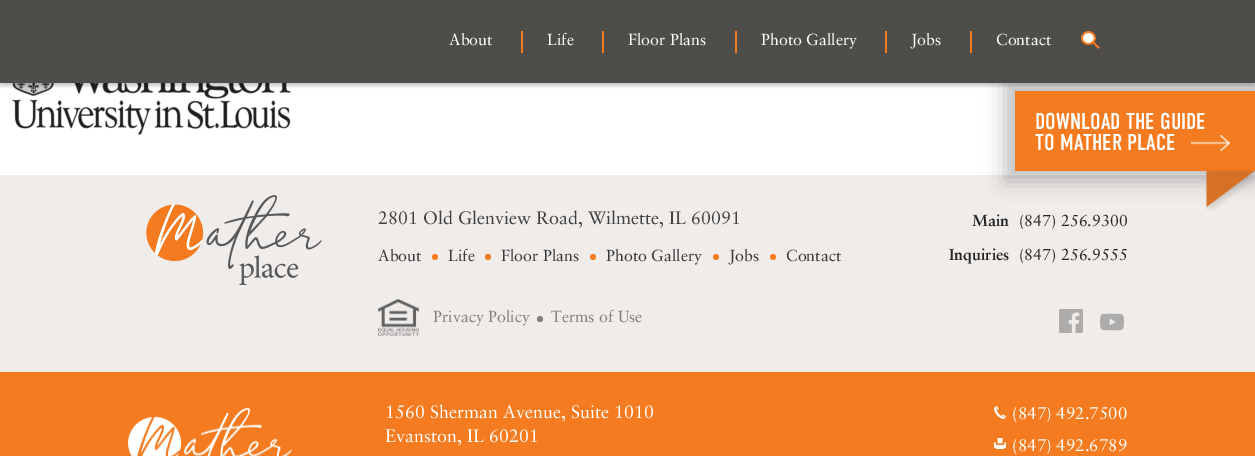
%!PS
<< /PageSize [1255 456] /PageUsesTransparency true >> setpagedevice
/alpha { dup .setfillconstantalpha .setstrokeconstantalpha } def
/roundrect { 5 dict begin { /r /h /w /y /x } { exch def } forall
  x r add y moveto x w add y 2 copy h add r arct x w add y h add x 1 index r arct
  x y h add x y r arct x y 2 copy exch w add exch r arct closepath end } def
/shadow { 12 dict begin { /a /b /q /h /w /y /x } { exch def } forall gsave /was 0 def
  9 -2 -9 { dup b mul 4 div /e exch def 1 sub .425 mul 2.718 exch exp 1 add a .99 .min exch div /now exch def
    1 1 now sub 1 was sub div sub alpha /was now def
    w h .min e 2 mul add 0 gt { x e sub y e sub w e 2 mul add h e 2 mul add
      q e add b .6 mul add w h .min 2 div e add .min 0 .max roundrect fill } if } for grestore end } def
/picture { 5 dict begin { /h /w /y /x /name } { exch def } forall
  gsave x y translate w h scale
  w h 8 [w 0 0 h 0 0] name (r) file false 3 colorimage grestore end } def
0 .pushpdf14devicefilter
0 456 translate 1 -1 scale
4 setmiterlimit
1 setgray
0 0 1255 456 rectfill
(img2.rgb) 12 83 279 52 picture
0.937 0.925 0.918 setrgbcolor
0 175 1255 197 rectfill
0.027 0.031 0.031 setrgbcolor
1005 81 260 100 0 10 0.25 shadow
0.957 0.482 0.125 setrgbcolor
1015 91 240 80 rectfill
0 setgray
0 3 1255 83 0 1.5 0.2 shadow
0.31 0.302 0.286 setrgbcolor
0 0 1255 83 rectfill
/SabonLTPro-Regular [16 0 0 -16 0 0] selectfont
1 setgray
449 45 moveto (About) show
0.957 0.482 0.125 setrgbcolor
521 31 2 22 rectfill
1 setgray
547 45 moveto (Life) show
0.957 0.482 0.125 setrgbcolor
602 31 2 22 rectfill
1 setgray
628 45 moveto (Floor Plans) show
0.957 0.482 0.125 setrgbcolor
735 31 2 22 rectfill
1 setgray
761 45 moveto (Photo Gallery) show
0.957 0.482 0.125 setrgbcolor
885 31 2 22 rectfill
1 setgray
911 45 moveto (Jobs) show
0.957 0.482 0.125 setrgbcolor
970 31 2 22 rectfill
1 setgray
996 45 moveto (Contact) show
(img1.rgb) 1081 31 19 18 picture
(img3.rgb) 146 195 176 90 picture
/SabonLTPro-Regular [18 0 0 -18 0 0] selectfont
0.251 setgray
378 224 moveto (2801 Old Glenview Road, Wilmette, IL 60091) show
/SabonLTPro-Regular [16 0 0 -16 0 0] selectfont
0.216 setgray
378 261 moveto (About) show
0.957 0.482 0.125 setrgbcolor
newpath 435 257 3 0 360 arc closepath fill
0.216 setgray
448 261 moveto (Life) show
0.957 0.482 0.125 setrgbcolor
newpath 488 257 3 0 360 arc closepath fill
0.216 setgray
501 261 moveto (Floor Plans) show
0.957 0.482 0.125 setrgbcolor
newpath 593 257 3 0 360 arc closepath fill
0.216 setgray
606 261 moveto (Photo Gallery) show
0.957 0.482 0.125 setrgbcolor
newpath 716 257 3 0 360 arc closepath fill
0.216 setgray
729 261 moveto (Jobs) show
0.957 0.482 0.125 setrgbcolor
newpath 773 257 3 0 360 arc closepath fill
0.216 setgray
786 261 moveto (Contact) show
/SabonLTPro-Bold [16 0 0 -16 0 0] selectfont
0.145 setgray
972 226 moveto (Main) show
/SabonLTPro-Regular [16 0 0 -16 0 0] selectfont
1019 226 moveto (\(847\) 256.9300) show
/SabonLTPro-Bold [16 0 0 -16 0 0] selectfont
949 260 moveto (Inquiries) show
/SabonLTPro-Regular [16 0 0 -16 0 0] selectfont
1019 260 moveto (\(847\) 256.9555) show
(img4.rgb) 378 299 41 37 picture
0.502 setgray
433 322 moveto (Privacy Policy) show
newpath 540 319 3 0 360 arc closepath fill
551 322 moveto (Terms of Use) show
(img5.rgb) 1059 309 24 24 picture
(img6.rgb) 1100 313 24 18 picture
0.957 0.482 0.125 setrgbcolor
0 372 1255 84 rectfill
(img7.rgb) 128 408 164 48 picture
/SabonLTPro-Regular [18 0 0 -18 0 0] selectfont
1 setgray
385 418 moveto (1560 Sherman Avenue, Suite 1010) show
385 442 moveto (Evanston, IL 60201) show
(img8.rgb) 994 406 12 13 picture
/SabonLTPro-Regular [17 0 0 -17 0 0] selectfont
1012 419 moveto (\(847\) 492.7500) show
(img9.rgb) 994 438 12 11 picture
1012 451 moveto (\(847\) 492.6789) show
/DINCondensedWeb-Regular [23 0 0 -23 0 0] selectfont
1035 129 moveto (DOWNLOAD THE GUIDE) show
1035 150 moveto (TO MATHER PLACE) show
(img10.rgb) 1191 135 39 16 picture
(img11.rgb) 1205 169 50 42 picture
.poppdf14devicefilter showpage
